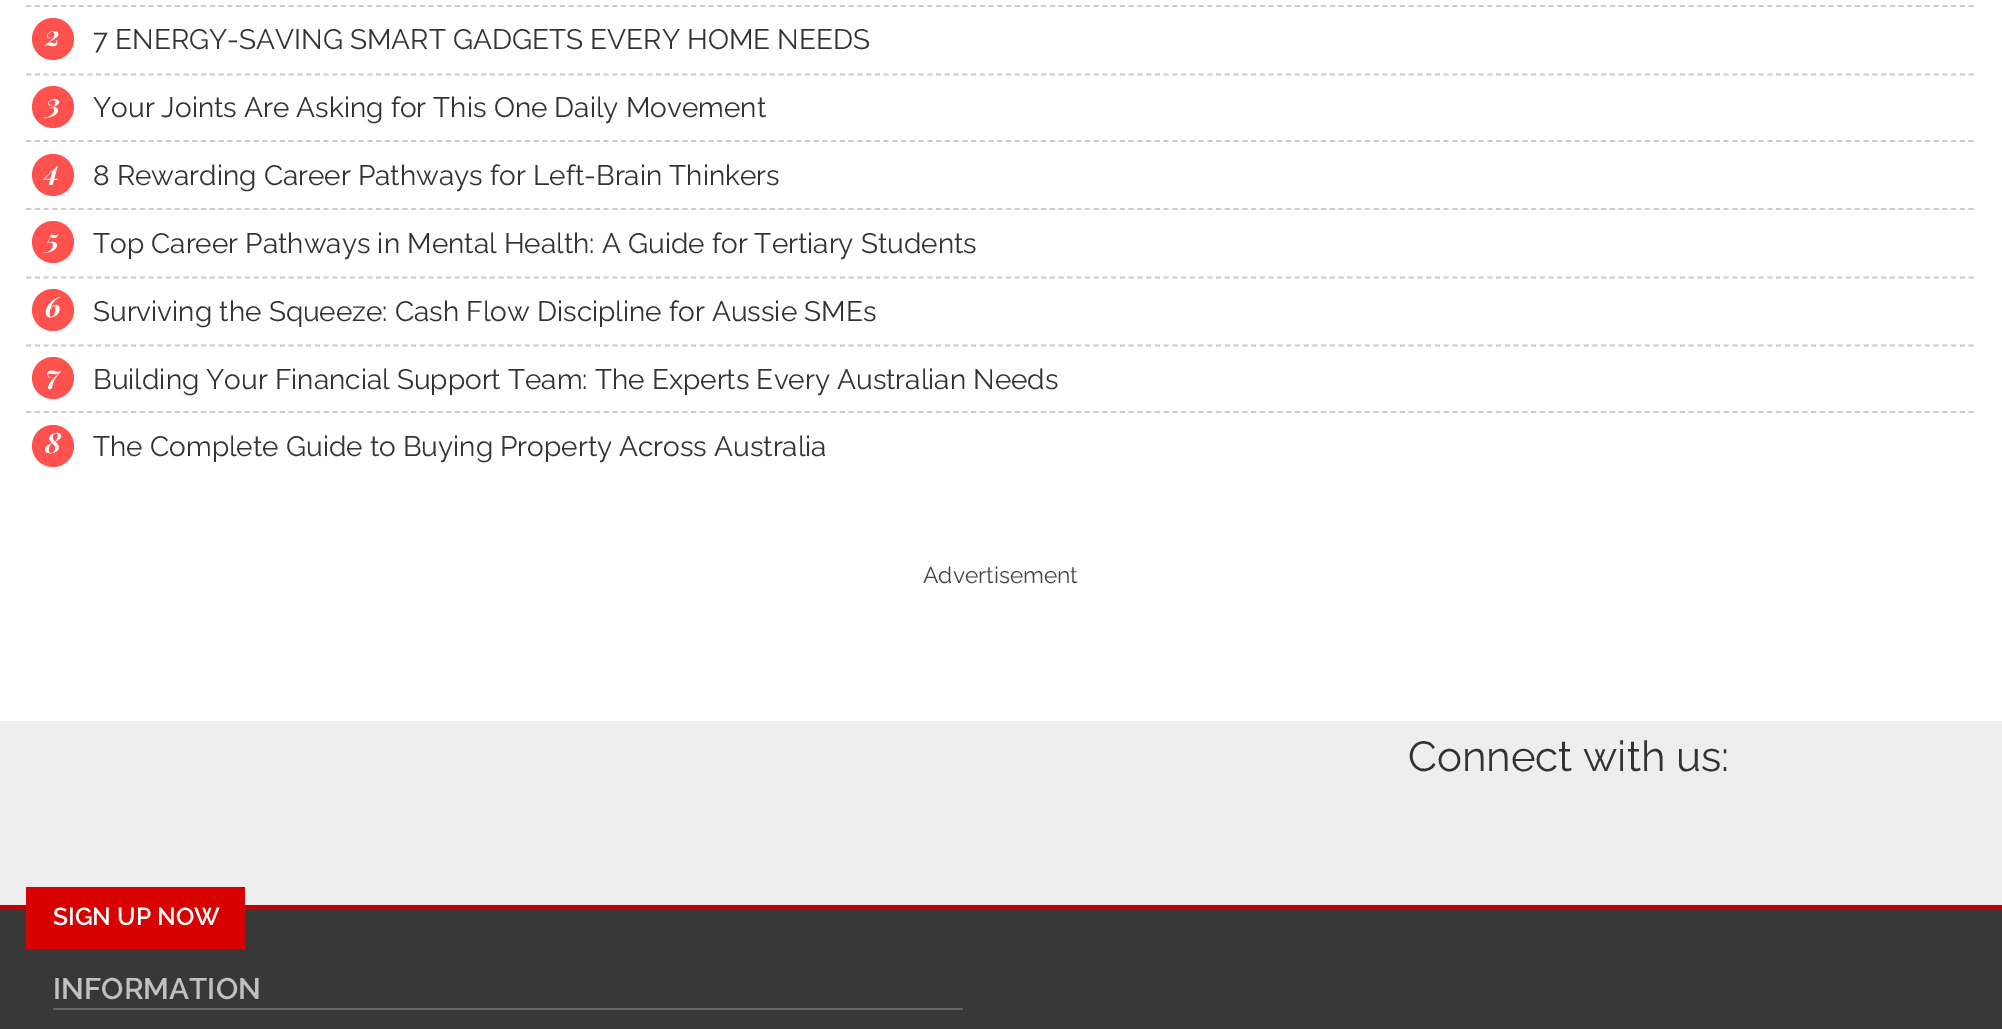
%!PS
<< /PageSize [2002 1029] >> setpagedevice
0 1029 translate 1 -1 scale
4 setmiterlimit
1 setgray
0 0 2002 1029 rectfill
0.8 setgray
1.8 setlinewidth
[5.25 3.5] 0 setdash
newpath 26 6 moveto 1976 6 lineto stroke
newpath 26 74.5 moveto 1976 74.5 lineto stroke
1 0.318 0.302 setrgbcolor
newpath 53 39 21 0 360 arc closepath fill
/PlayfairDisplay-BoldItalic [28 0 0 -28 0 0] selectfont
1 setgray
45 46 moveto (2) show
/Raleway-Regular [28 0 0 -28 0 0] selectfont
0.2 setgray
93 49 moveto (7 ENERGY-SAVING SMART GADGETS EVERY HOME NEEDS) show
0.8 setgray
newpath 26 141 moveto 1976 141 lineto stroke
1 0.318 0.302 setrgbcolor
newpath 53 107 21 0 360 arc closepath fill
/PlayfairDisplay-BoldItalic [28 0 0 -28 0 0] selectfont
1 setgray
46 114 moveto (3) show
/Raleway-Regular [28 0 0 -28 0 0] selectfont
0.2 setgray
93 117 moveto (Your Joints Are Asking for This One Daily Movement) show
0.8 setgray
newpath 26 209 moveto 1976 209 lineto stroke
1 0.318 0.302 setrgbcolor
newpath 53 175 21 0 360 arc closepath fill
/PlayfairDisplay-BoldItalic [28 0 0 -28 0 0] selectfont
1 setgray
45 181 moveto (4) show
/Raleway-Regular [28 0 0 -28 0 0] selectfont
0.2 setgray
93 185 moveto (8 Rewarding Career Pathways for Left-Brain Thinkers) show
0.8 setgray
newpath 26 277.5 moveto 1976 277.5 lineto stroke
1 0.318 0.302 setrgbcolor
newpath 53 242 21 0 360 arc closepath fill
/PlayfairDisplay-BoldItalic [28 0 0 -28 0 0] selectfont
1 setgray
46 249 moveto (5) show
/Raleway-Regular [28 0 0 -28 0 0] selectfont
0.2 setgray
93 253 moveto (Top Career Pathways in Mental Health: A Guide for Tertiary Students) show
0.8 setgray
newpath 26 345.5 moveto 1976 345.5 lineto stroke
1 0.318 0.302 setrgbcolor
newpath 53 310 21 0 360 arc closepath fill
/PlayfairDisplay-BoldItalic [28 0 0 -28 0 0] selectfont
1 setgray
45 317 moveto (6) show
/Raleway-Regular [28 0 0 -28 0 0] selectfont
0.2 setgray
93 321 moveto (Surviving the Squeeze: Cash Flow Discipline for Aussie SMEs) show
0.8 setgray
newpath 26 412 moveto 1976 412 lineto stroke
1 0.318 0.302 setrgbcolor
newpath 53 378 21 0 360 arc closepath fill
/PlayfairDisplay-BoldItalic [28 0 0 -28 0 0] selectfont
1 setgray
46 385 moveto (7) show
/Raleway-Regular [28 0 0 -28 0 0] selectfont
0.2 setgray
93 389 moveto (Building Your Financial Support Team: The Experts Every Australian Needs) show
1 0.318 0.302 setrgbcolor
newpath 53 446 21 0 360 arc closepath fill
/PlayfairDisplay-BoldItalic [28 0 0 -28 0 0] selectfont
1 setgray
45 453 moveto (8) show
/Raleway-Regular [28 0 0 -28 0 0] selectfont
0.2 setgray
93 456 moveto (The Complete Guide to Buying Property Across Australia) show
/Raleway-Regular [22.75 0 0 -22.75 0 0] selectfont
0.267 setgray
923 583 moveto (Advertisement) show
0.933 setgray
0 721 2002 184 rectfill
/Raleway-Regular [42 0 0 -42 0 0] selectfont
0.2 setgray
1408 771 moveto (Connect with us:) show
0.22 setgray
0 909 2002 120 rectfill
0.753 0 0 setrgbcolor
0 905 2002 4 rectfill
0.851 0 0 setrgbcolor
26 887 219 62 rectfill
/Raleway-SemiBold [24.5 0 0 -24.5 0 0] selectfont
1 setgray
53 925 moveto (SIGN UP NOW) show
0.4 setgray
53 1008 910 2 rectfill
/Raleway-SemiBold [29.75 0 0 -29.75 0 0] selectfont
0.753 setgray
53 999 moveto (INFORMATION) show
showpage
